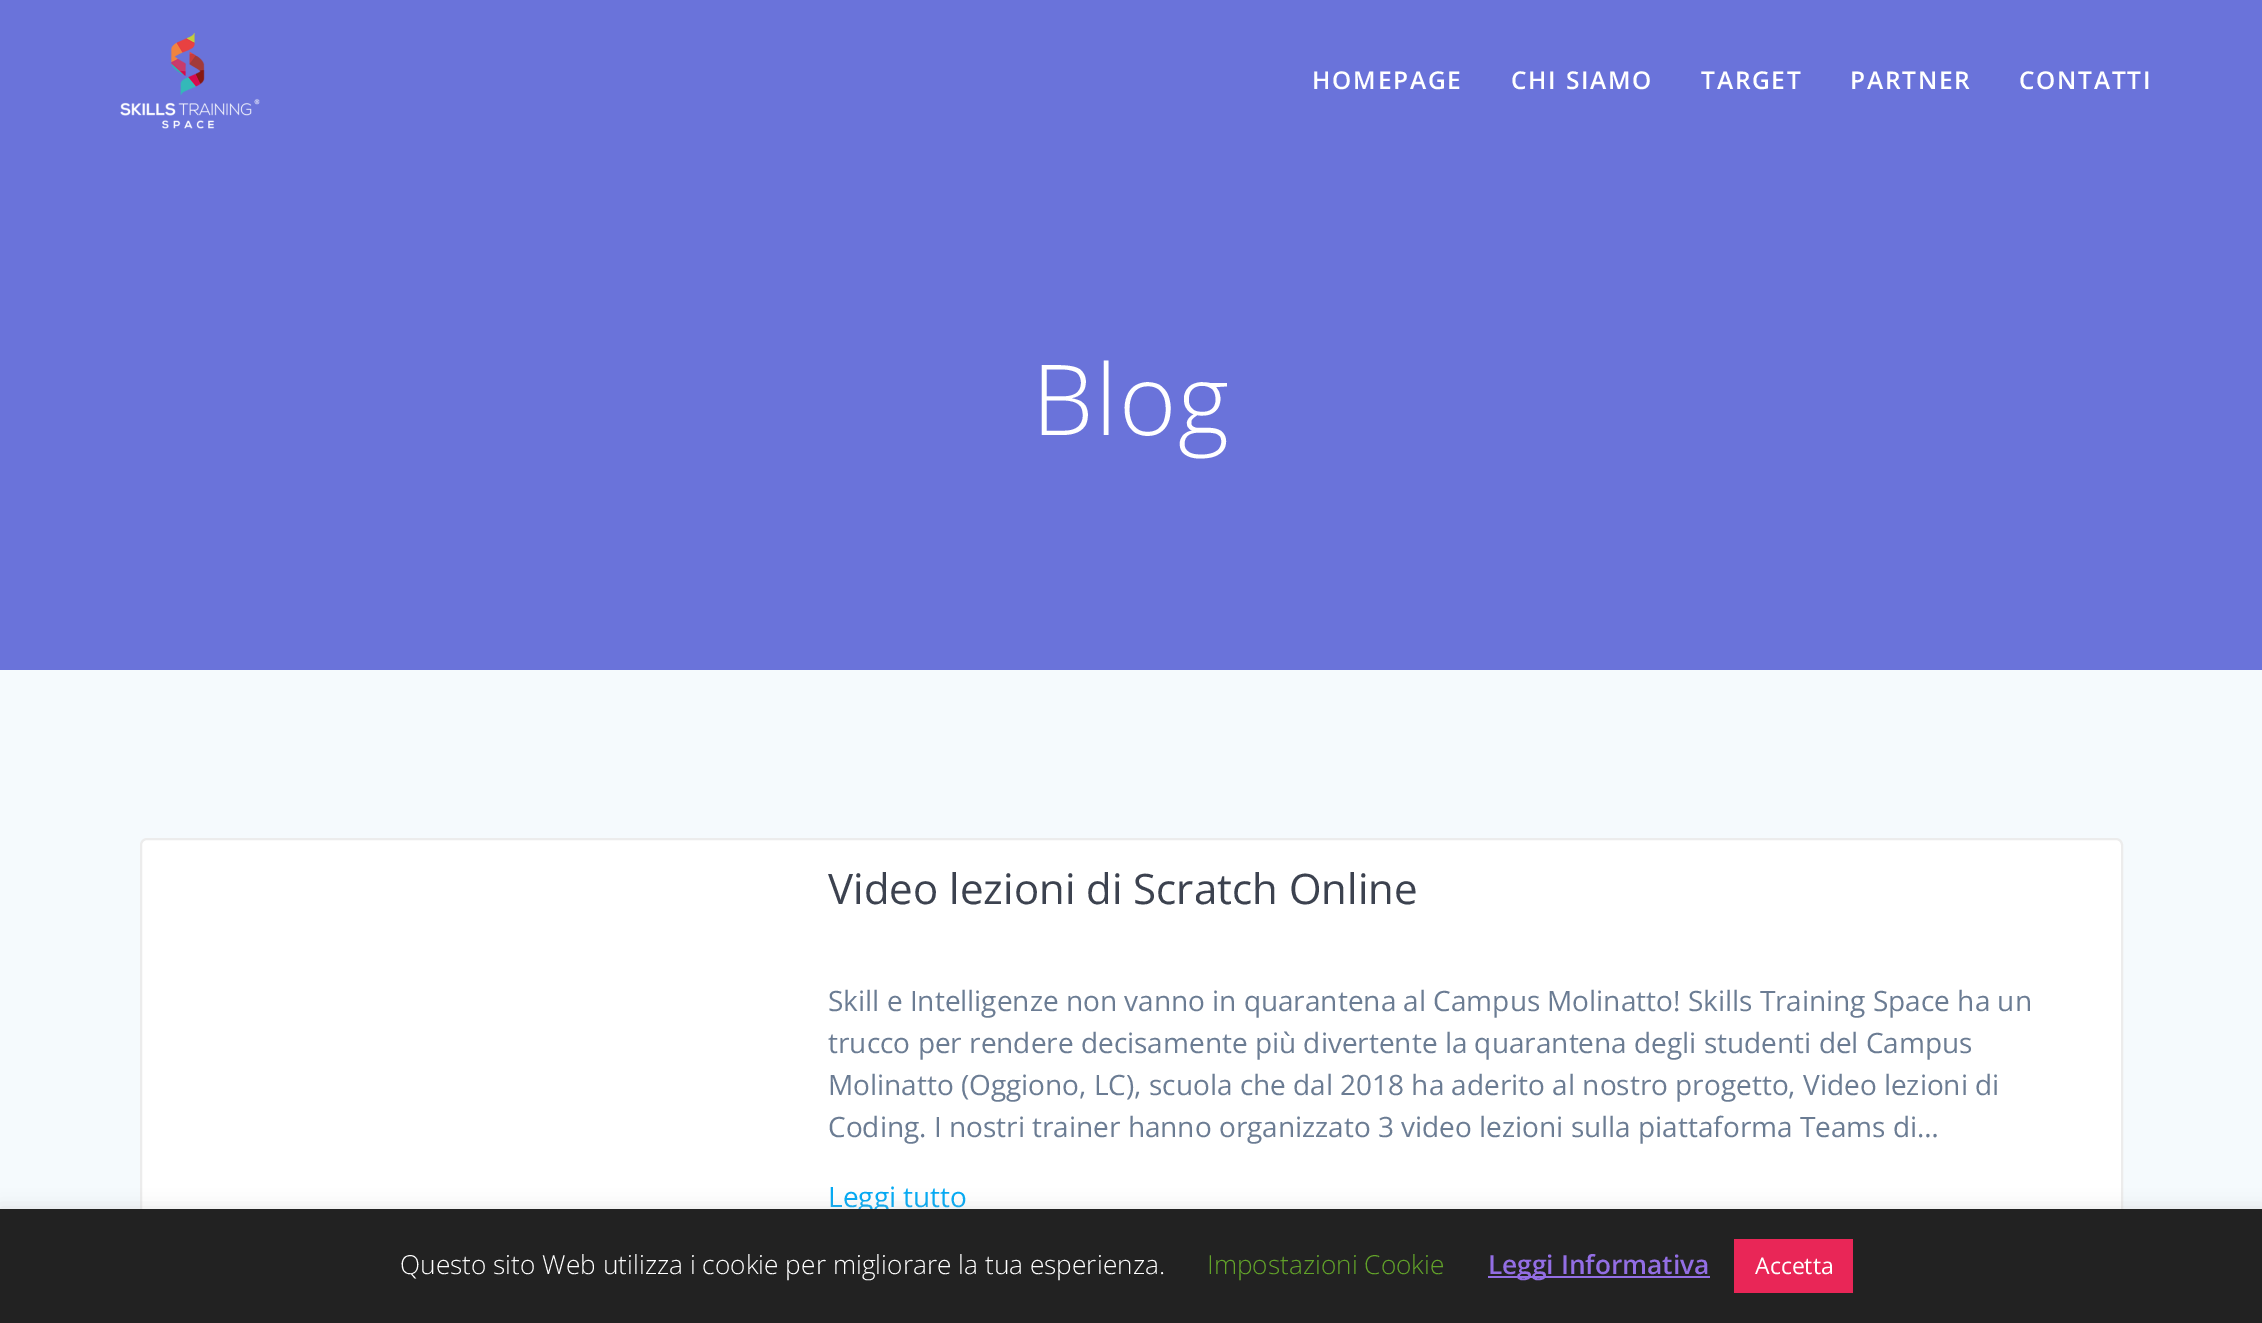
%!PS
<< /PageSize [2262 1323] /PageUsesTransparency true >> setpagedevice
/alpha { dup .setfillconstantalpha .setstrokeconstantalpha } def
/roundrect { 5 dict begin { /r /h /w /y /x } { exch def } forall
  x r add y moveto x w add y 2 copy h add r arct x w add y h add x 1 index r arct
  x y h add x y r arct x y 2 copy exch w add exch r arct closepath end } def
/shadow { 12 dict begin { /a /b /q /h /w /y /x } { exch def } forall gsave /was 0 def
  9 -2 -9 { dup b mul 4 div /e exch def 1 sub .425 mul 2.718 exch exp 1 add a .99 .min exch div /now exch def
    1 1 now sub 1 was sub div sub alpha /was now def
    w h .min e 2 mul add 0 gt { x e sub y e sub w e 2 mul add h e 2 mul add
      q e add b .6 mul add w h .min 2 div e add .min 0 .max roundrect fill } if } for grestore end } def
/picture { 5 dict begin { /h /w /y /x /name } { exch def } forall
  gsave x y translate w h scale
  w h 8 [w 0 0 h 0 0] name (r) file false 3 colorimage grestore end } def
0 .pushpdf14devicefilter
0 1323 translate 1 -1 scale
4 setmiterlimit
0.416 0.451 0.855 setrgbcolor
0 0 2262 1323 rectfill
(img1.rgb) 120 32 140 97 picture
/OpenSans-SemiBold [24.5 0 0 -24.5 0 0] selectfont
1 setgray
1312 89 moveto 1.75 0 (HOMEPAGE) ashow
1511 89 moveto 1.75 0 (CHI SIAMO) ashow
1701 89 moveto 1.75 0 (TARGET) ashow
1850 89 moveto 1.75 0 (PARTNER) ashow
2019 89 moveto 1.75 0 (CONTATTI) ashow
/OpenSans-Light [98 0 0 -98 0 0] selectfont
1032 435 moveto 1.5 0 (Blog) ashow
0.961 0.98 0.992 setrgbcolor
0 670 2262 539 rectfill
1 setgray
141 839 1981 408 6 roundrect gsave fill grestore
0.925 setgray
2 setlinewidth
stroke
/OpenSans-Regular [42 0 0 -42 0 0] selectfont
0.235 0.259 0.31 setrgbcolor
828 904 moveto (Video lezioni di Scratch Online) show
/OpenSans-Regular [28 0 0 -28 0 0] selectfont
0.42 0.486 0.576 setrgbcolor
828 1011 moveto (Skill e Intelligenze non vanno in quarantena al Campus Molinatto! Skills Training Space ha un) show
828 1053 moveto (trucco per rendere decisamente più divertente la quarantena degli studenti del Campus) show
828 1095 moveto (Molinatto \(Oggiono, LC\), scuola che dal 2018 ha aderito al nostro progetto, Video lezioni di) show
828 1137 moveto (Coding. I nostri trainer hanno organizzato 3 video lezioni sulla piattaforma Teams di…) show
0.012 0.663 0.957 setrgbcolor
828 1207 moveto (Leggi tutto) show
0.675 0.671 0.671 setrgbcolor
0 1208 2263 113 0 9 0.3 shadow
0.133 setgray
0 1209 2262 114 rectfill
/OpenSans-Light [26.25 0 0 -26.25 0 0] selectfont
1 setgray
400 1274 moveto (Questo sito Web utilizza i cookie per migliorare la tua esperienza.) show
0.384 0.639 0.161 setrgbcolor
1207 1274 moveto (Impostazioni Cookie) show
0.576 0.431 0.894 setrgbcolor
1488 1276 222 2 rectfill
/OpenSans-SemiBold [26.25 0 0 -26.25 0 0] selectfont
1488 1274 moveto (Leggi Informativa) show
0.914 0.149 0.341 setrgbcolor
1734 1239 119 54 rectfill
/OpenSans-Regular [23 0 0 -23 0 0] selectfont
1 setgray
1755 1274 moveto (Accetta) show
.poppdf14devicefilter showpage
